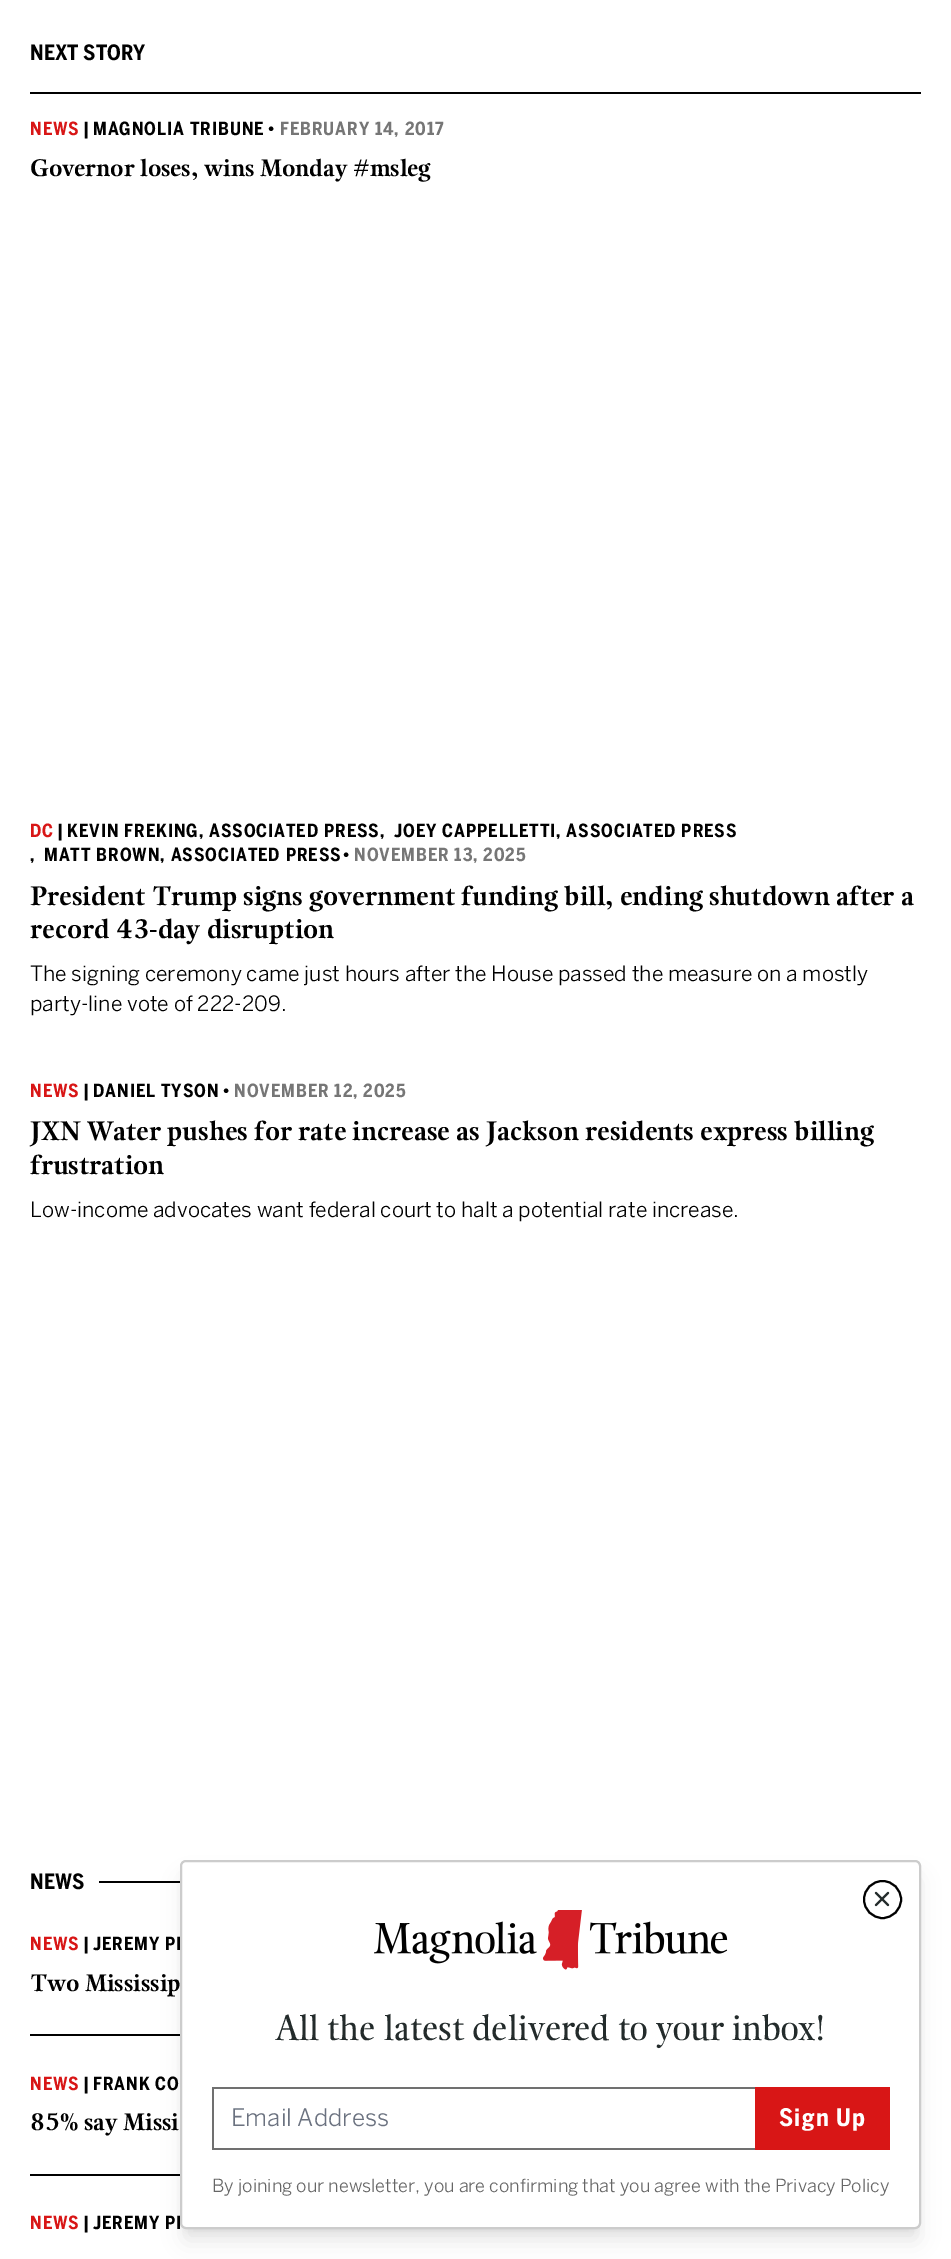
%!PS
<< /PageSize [951 2259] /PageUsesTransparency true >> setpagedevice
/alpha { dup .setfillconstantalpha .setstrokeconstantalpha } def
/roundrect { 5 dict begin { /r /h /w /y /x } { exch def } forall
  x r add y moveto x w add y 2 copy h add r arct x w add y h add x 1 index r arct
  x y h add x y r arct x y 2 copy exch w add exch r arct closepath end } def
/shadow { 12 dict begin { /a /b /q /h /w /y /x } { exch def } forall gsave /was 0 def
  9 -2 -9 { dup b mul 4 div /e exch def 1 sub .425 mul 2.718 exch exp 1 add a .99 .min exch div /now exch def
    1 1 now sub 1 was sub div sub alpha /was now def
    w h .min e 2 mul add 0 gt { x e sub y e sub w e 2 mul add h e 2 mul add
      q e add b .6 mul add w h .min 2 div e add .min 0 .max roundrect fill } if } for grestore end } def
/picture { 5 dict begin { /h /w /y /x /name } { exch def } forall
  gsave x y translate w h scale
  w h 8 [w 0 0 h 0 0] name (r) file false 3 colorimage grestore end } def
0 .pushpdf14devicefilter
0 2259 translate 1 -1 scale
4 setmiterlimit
1 setgray
0 0 951 2259 rectfill
0 setgray
30 92 891 2 rectfill
/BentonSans-Bold [21 0 0 -21 0 0] selectfont
30 60 moveto (NEXT STORY) show
/BentonSans-Bold [18 0 0 -18 0 0] selectfont
0.847 0.086 0.086 setrgbcolor
30 135 moveto 0.9 0 (NEWS) ashow
0 setgray
83 135 moveto 0.9 0 (|) ashow
93 135 moveto 0.9 0 (MAGNOLIA TRIBUNE) ashow
267 135 moveto 0.9 0 (•) ashow
0.463 setgray
280 135 moveto 0.9 0 (FEBRUARY 14, 2017) ashow
/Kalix-Bold [24 0 0 -24 0 0] selectfont
0 setgray
30 176 moveto (Governor loses, wins Monday #msleg) show
/BentonSans-Bold [18 0 0 -18 0 0] selectfont
0.847 0.086 0.086 setrgbcolor
30 837 moveto 0.9 0 (DC) ashow
0 setgray
57 837 moveto 0.9 0 (|) ashow
67 837 moveto 0.9 0 (KEVIN FREKING, ASSOCIATED PRESS,) ashow
394 837 moveto 0.9 0 (JOEY CAPPELLETTI, ASSOCIATED PRESS) ashow
30 861 moveto 0.9 0 (,) ashow
44 861 moveto 0.9 0 (MATT BROWN, ASSOCIATED PRESS) ashow
342 861 moveto 0.9 0 (•) ashow
0.463 setgray
354 861 moveto 0.9 0 (NOVEMBER 13, 2025) ashow
/Kalix-Bold [27 0 0 -27 0 0] selectfont
0 setgray
30 905 moveto (President Trump signs government funding bill, ending shutdown after a) show
30 938 moveto (record 43-day disruption) show
/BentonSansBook-Regular [21 0 0 -21 0 0] selectfont
30 981 moveto (The signing ceremony came just hours after the House passed the measure on a mostly) show
30 1011 moveto (party-line vote of 222-209.) show
/BentonSans-Bold [18 0 0 -18 0 0] selectfont
0.847 0.086 0.086 setrgbcolor
30 1097 moveto 0.9 0 (NEWS) ashow
0 setgray
83 1097 moveto 0.9 0 (|) ashow
93 1097 moveto 0.9 0 (DANIEL TYSON) ashow
222 1097 moveto 0.9 0 (•) ashow
0.463 setgray
234 1097 moveto 0.9 0 (NOVEMBER 12, 2025) ashow
/Kalix-Bold [27 0 0 -27 0 0] selectfont
0 setgray
30 1140 moveto (JXN Water pushes for rate increase as Jackson residents express billing) show
30 1174 moveto (frustration) show
/BentonSansBook-Regular [21 0 0 -21 0 0] selectfont
30 1217 moveto (Low-income advocates want federal court to halt a potential rate increase.) show
/BentonSans-Bold [21 0 0 -21 0 0] selectfont
30 1889 moveto (NEWS) show
99 1881 81 2 rectfill
30 2034 150 2 rectfill
/BentonSans-Bold [18 0 0 -18 0 0] selectfont
0.847 0.086 0.086 setrgbcolor
30 1950 moveto 0.9 0 (NEWS) ashow
0 setgray
83 1950 moveto 0.9 0 (|) ashow
93 1950 moveto 0.9 0 (JEREMY PI) ashow
/Kalix-Bold [24 0 0 -24 0 0] selectfont
30 1991 moveto (Two Mississip) show
30 2174 150 2 rectfill
/BentonSans-Bold [18 0 0 -18 0 0] selectfont
0.847 0.086 0.086 setrgbcolor
30 2090 moveto 0.9 0 (NEWS) ashow
0 setgray
83 2090 moveto 0.9 0 (|) ashow
93 2090 moveto 0.9 0 (FRANK CO) ashow
/Kalix-Bold [24 0 0 -24 0 0] selectfont
30 2130 moveto (85% say Missi) show
/BentonSans-Bold [18 0 0 -18 0 0] selectfont
0.847 0.086 0.086 setrgbcolor
30 2229 moveto 0.9 0 (NEWS) ashow
0 setgray
83 2229 moveto 0.9 0 (|) ashow
93 2229 moveto 0.9 0 (JEREMY PI) ashow
186 1872 729 357 0 4.5 0.1 shadow
185 1880 732 360 1.5 11 0.1 shadow
1 setgray
181 1861 739 367 5 roundrect gsave fill grestore
0.8 setgray
2 setlinewidth
stroke
0 setgray
newpath 882.5 1899.5 18.5 0 360 arc closepath stroke
(img1.rgb) 874 1891 16 16 picture
(img2.rgb) 374 1910 354 60 picture
/Kalix-Regular [36 0 0 -36 0 0] selectfont
0.137 0.169 0.169 setrgbcolor
275 2040 moveto (All the latest delivered to your inbox!) show
0.439 setgray
212 2087 543 2 rectfill
212 2148 543 2 rectfill
212 2087 2 63 rectfill
/BentonSansBook-Regular [24 0 0 -24 0 0] selectfont
0.42 0.447 0.502 setrgbcolor
231 2126 moveto (Email Address) show
0.847 0.086 0.086 setrgbcolor
755 2087 135 63 rectfill
/BentonSans-Bold [24 0 0 -24 0 0] selectfont
1 setgray
779 2126 moveto 1.25 0 (Sign Up) ashow
/BentonSansBook-Regular [18 0 0 -18 0 0] selectfont
0.4 setgray
212 2192 moveto (By joining our newsletter, you are confirming that you agree with the Privacy Policy) show
.poppdf14devicefilter showpage
